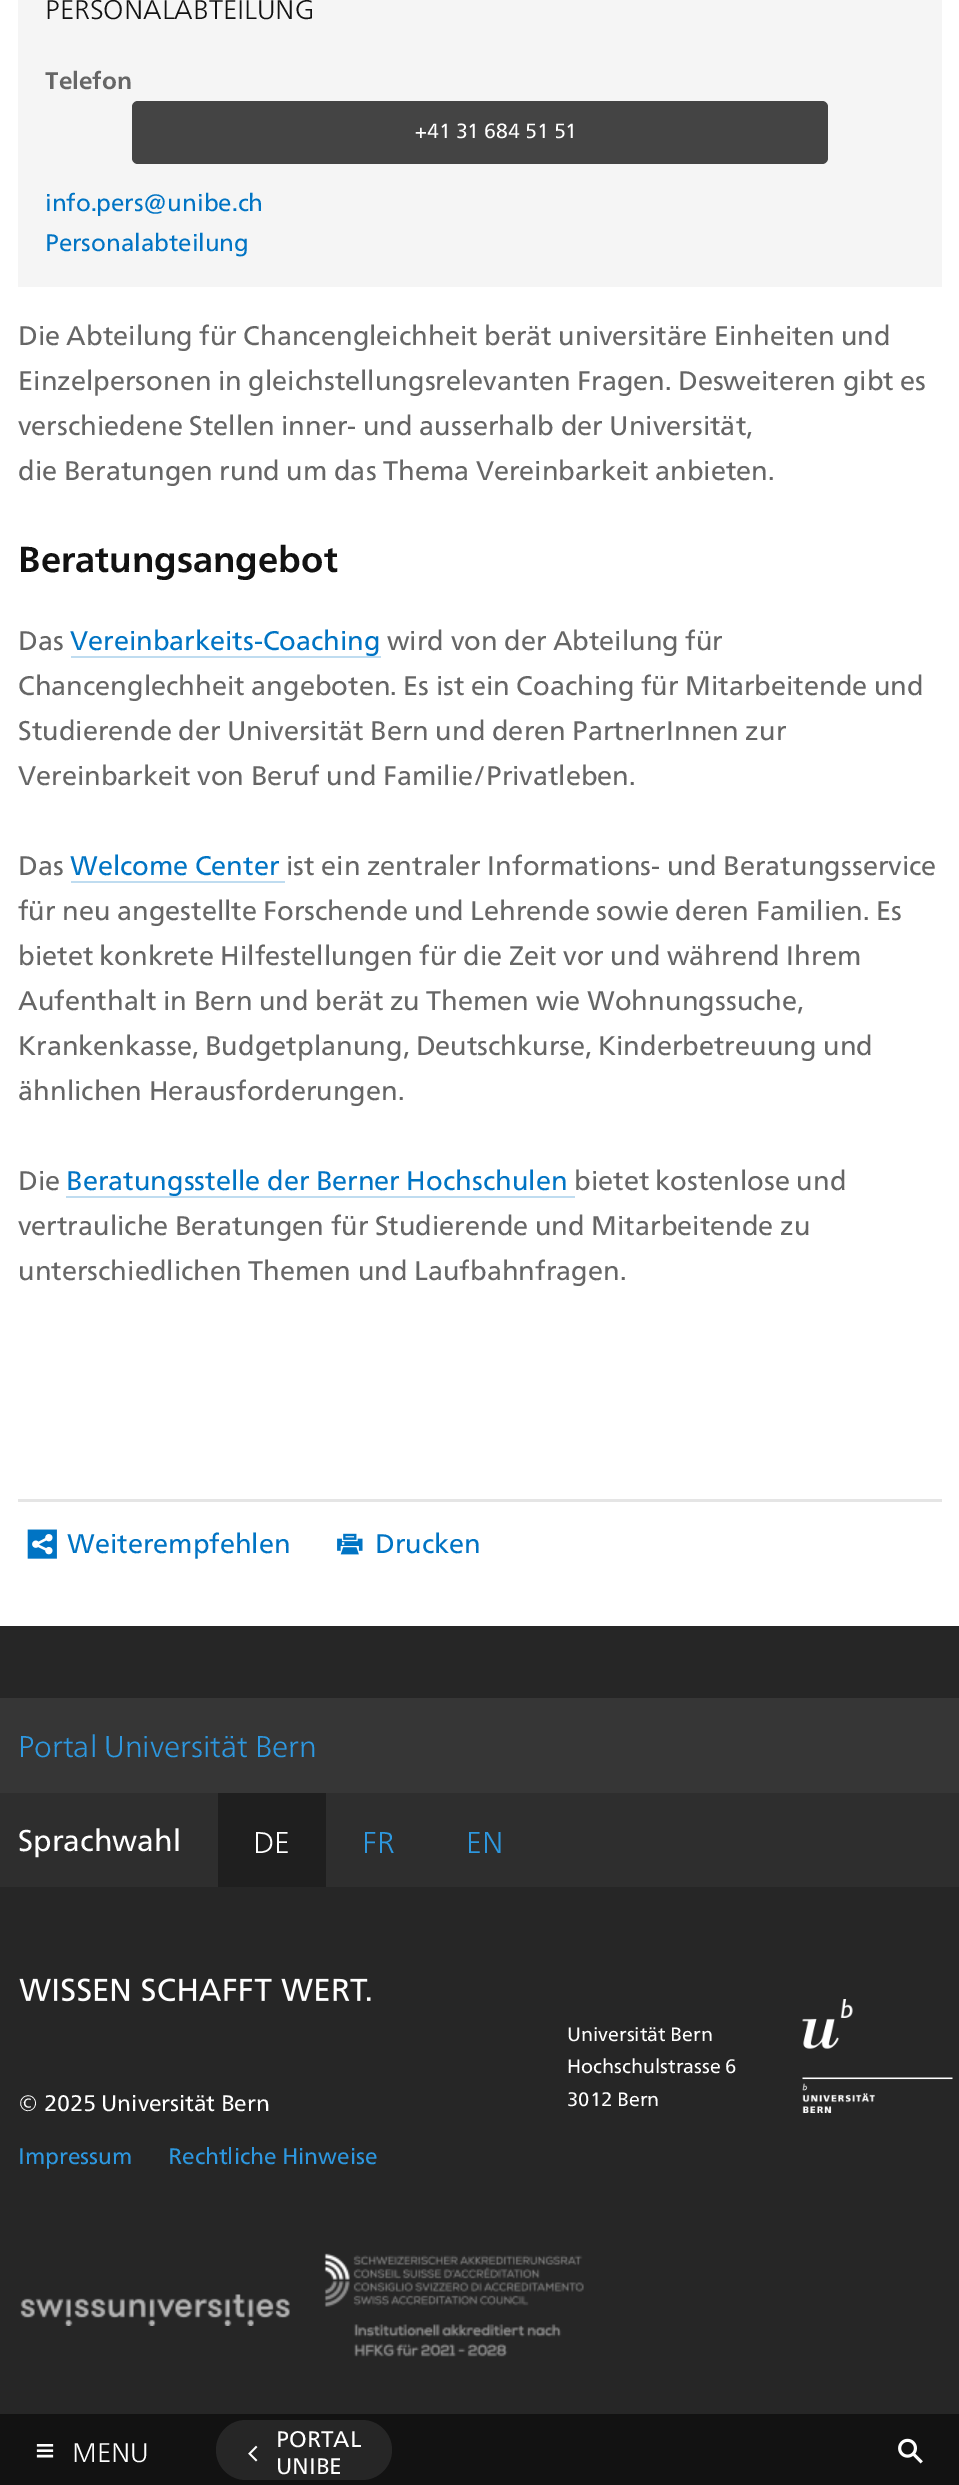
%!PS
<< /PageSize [959 2485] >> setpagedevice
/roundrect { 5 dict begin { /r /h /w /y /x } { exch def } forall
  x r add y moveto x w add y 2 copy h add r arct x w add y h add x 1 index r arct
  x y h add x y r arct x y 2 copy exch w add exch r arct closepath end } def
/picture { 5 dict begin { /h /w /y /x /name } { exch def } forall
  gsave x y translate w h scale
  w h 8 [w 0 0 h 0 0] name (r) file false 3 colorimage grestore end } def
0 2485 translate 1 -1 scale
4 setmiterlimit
1 setgray
0 0 959 2485 rectfill
0.961 setgray
18 0 924 287 rectfill
/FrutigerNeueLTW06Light-Light [27 0 0 -27 0 0] selectfont
0.071 setgray
45 19 moveto (PERSONALABTEILUNG) show
/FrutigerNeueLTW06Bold-Bold [24 0 0 -24 0 0] selectfont
0.4 setgray
45 89 moveto (Telefon) show
0.267 setgray
132 101 696 63 6 roundrect fill
/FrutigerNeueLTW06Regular-Regular [20.5 0 0 -20.5 0 0] selectfont
1 setgray
415 138 moveto (+41 31 684 51 51) show
/FrutigerNeueLTW06Regular-Regular [24 0 0 -24 0 0] selectfont
0 0.455 0.769 setrgbcolor
45 211 moveto (info.pers@unibe.ch) show
45 251 moveto (Personalabteilung) show
/FrutigerNeueLTW06Regular-Regular [27 0 0 -27 0 0] selectfont
0.4 setgray
18 345 moveto (Die Abteilung für Chancengleichheit berät universitäre Einheiten und) show
18 390 moveto (Einzelpersonen in gleichstellungsrelevanten Fragen. Desweiteren gibt es) show
18 435 moveto (verschiedene Stellen inner- und ausserhalb der Universität,) show
18 480 moveto (die Beratungen rund um das Thema Vereinbarkeit anbieten.) show
/FrutigerNeueLTW06Bold-Bold [36 0 0 -36 0 0] selectfont
0.071 setgray
18 572 moveto (Beratungsangebot) show
/FrutigerNeueLTW06Regular-Regular [27 0 0 -27 0 0] selectfont
0.4 setgray
18 650 moveto (Das) show
0 0.455 0.769 setrgbcolor
70 650 moveto (Vereinbarkeits-Coaching) show
0.749 0.863 0.941 setrgbcolor
71 656 310 2 rectfill
0.4 setgray
387 650 moveto (wird von der Abteilung für) show
18 695 moveto (Chancenglechheit angeboten. Es ist ein Coaching für Mitarbeitende und) show
18 740 moveto (Studierende der Universität Bern und deren PartnerInnen zur) show
18 785 moveto (Vereinbarkeit von Beruf und Familie/Privatleben.) show
18 875 moveto (Das) show
0 0.455 0.769 setrgbcolor
70 875 moveto (Welcome Center) show
0.749 0.863 0.941 setrgbcolor
71 881 214 2 rectfill
0.4 setgray
286 875 moveto (ist ein zentraler Informations- und Beratungsservice) show
18 920 moveto (für neu angestellte Forschende und Lehrende sowie deren Familien. Es) show
18 965 moveto (bietet konkrete Hilfestellungen für die Zeit vor und während Ihrem) show
18 1010 moveto (Aufenthalt in Bern und berät zu Themen wie Wohnungssuche,) show
18 1055 moveto (Krankenkasse, Budgetplanung, Deutschkurse, Kinderbetreuung und) show
18 1100 moveto (ähnlichen Herausforderungen.) show
18 1190 moveto (Die) show
0 0.455 0.769 setrgbcolor
66 1190 moveto (Beratungsstelle der Berner Hochschulen) show
0.749 0.863 0.941 setrgbcolor
66 1196 509 2 rectfill
0.4 setgray
574 1190 moveto (bietet kostenlose und) show
18 1235 moveto (vertrauliche Beratungen für Studierende und Mitarbeitende zu) show
18 1280 moveto (unterschiedlichen Themen und Laufbahnfragen.) show
0.898 setgray
18 1499 924 3 rectfill
(img1.rgb) 27 1529 30 30 picture
0 0.455 0.769 setrgbcolor
67 1553 moveto (Weiterempfehlen) show
(img2.rgb) 337 1533 26 22 picture
375 1553 moveto (Drucken) show
0.149 setgray
0 1626 959 788 rectfill
0.212 setgray
0 1698 959 95 rectfill
/FrutigerNeueLTW06Light-Light [30 0 0 -30 0 0] selectfont
0.176 0.596 0.878 setrgbcolor
18 1757 moveto (Portal Universität Bern) show
0.18 setgray
0 1793 959 94 rectfill
/FrutigerNeueLTW06Regular-Regular [30 0 0 -30 0 0] selectfont
1 setgray
18 1851 moveto (Sprachwahl) show
0.122 setgray
218 1793 108 94 rectfill
/FrutigerNeueLTW06Light-Light [30 0 0 -30 0 0] selectfont
1 setgray
253 1853 moveto (DE) show
0.176 0.596 0.878 setrgbcolor
362 1853 moveto (FR) show
466 1853 moveto (EN) show
(img3.rgb) 19 1978 352 24 picture
/FrutigerNeueLTW06Regular-Regular [19.5 0 0 -19.5 0 0] selectfont
1 setgray
567 2041 moveto (Universität Bern) show
567 2073 moveto (Hochschulstrasse 6) show
567 2106 moveto (3012 Bern) show
(img4.rgb) 802 1999 151 114 picture
/FrutigerNeueLTW06Regular-Regular [22.5 0 0 -22.5 0 0] selectfont
18 2111 moveto (© 2025 Universität Bern) show
0.176 0.596 0.878 setrgbcolor
18 2164 moveto (Impressum) show
168 2164 moveto (Rechtliche Hinweise) show
(img5.rgb) 20 2294 270 32 picture
(img6.rgb) 324 2253 260 104 picture
0.071 setgray
0 2414 959 71 rectfill
(img7.rgb) 36 2444 18 14 picture
/FrutigerNeueLTW06Light-Light [27 0 0 -27 0 0] selectfont
1 setgray
72 2462 moveto (MENU) show
0.149 setgray
216 2420 176 60 30 roundrect fill
/FrutigerNeueLTW06Regular-Regular [22.5 0 0 -22.5 0 0] selectfont
1 setgray
276 2447 moveto (PORTAL) show
(img8.rgb) 248 2445 10 17 picture
276 2474 moveto (UNIBE) show
(img9.rgb) 898 2438 25 26 picture
showpage
